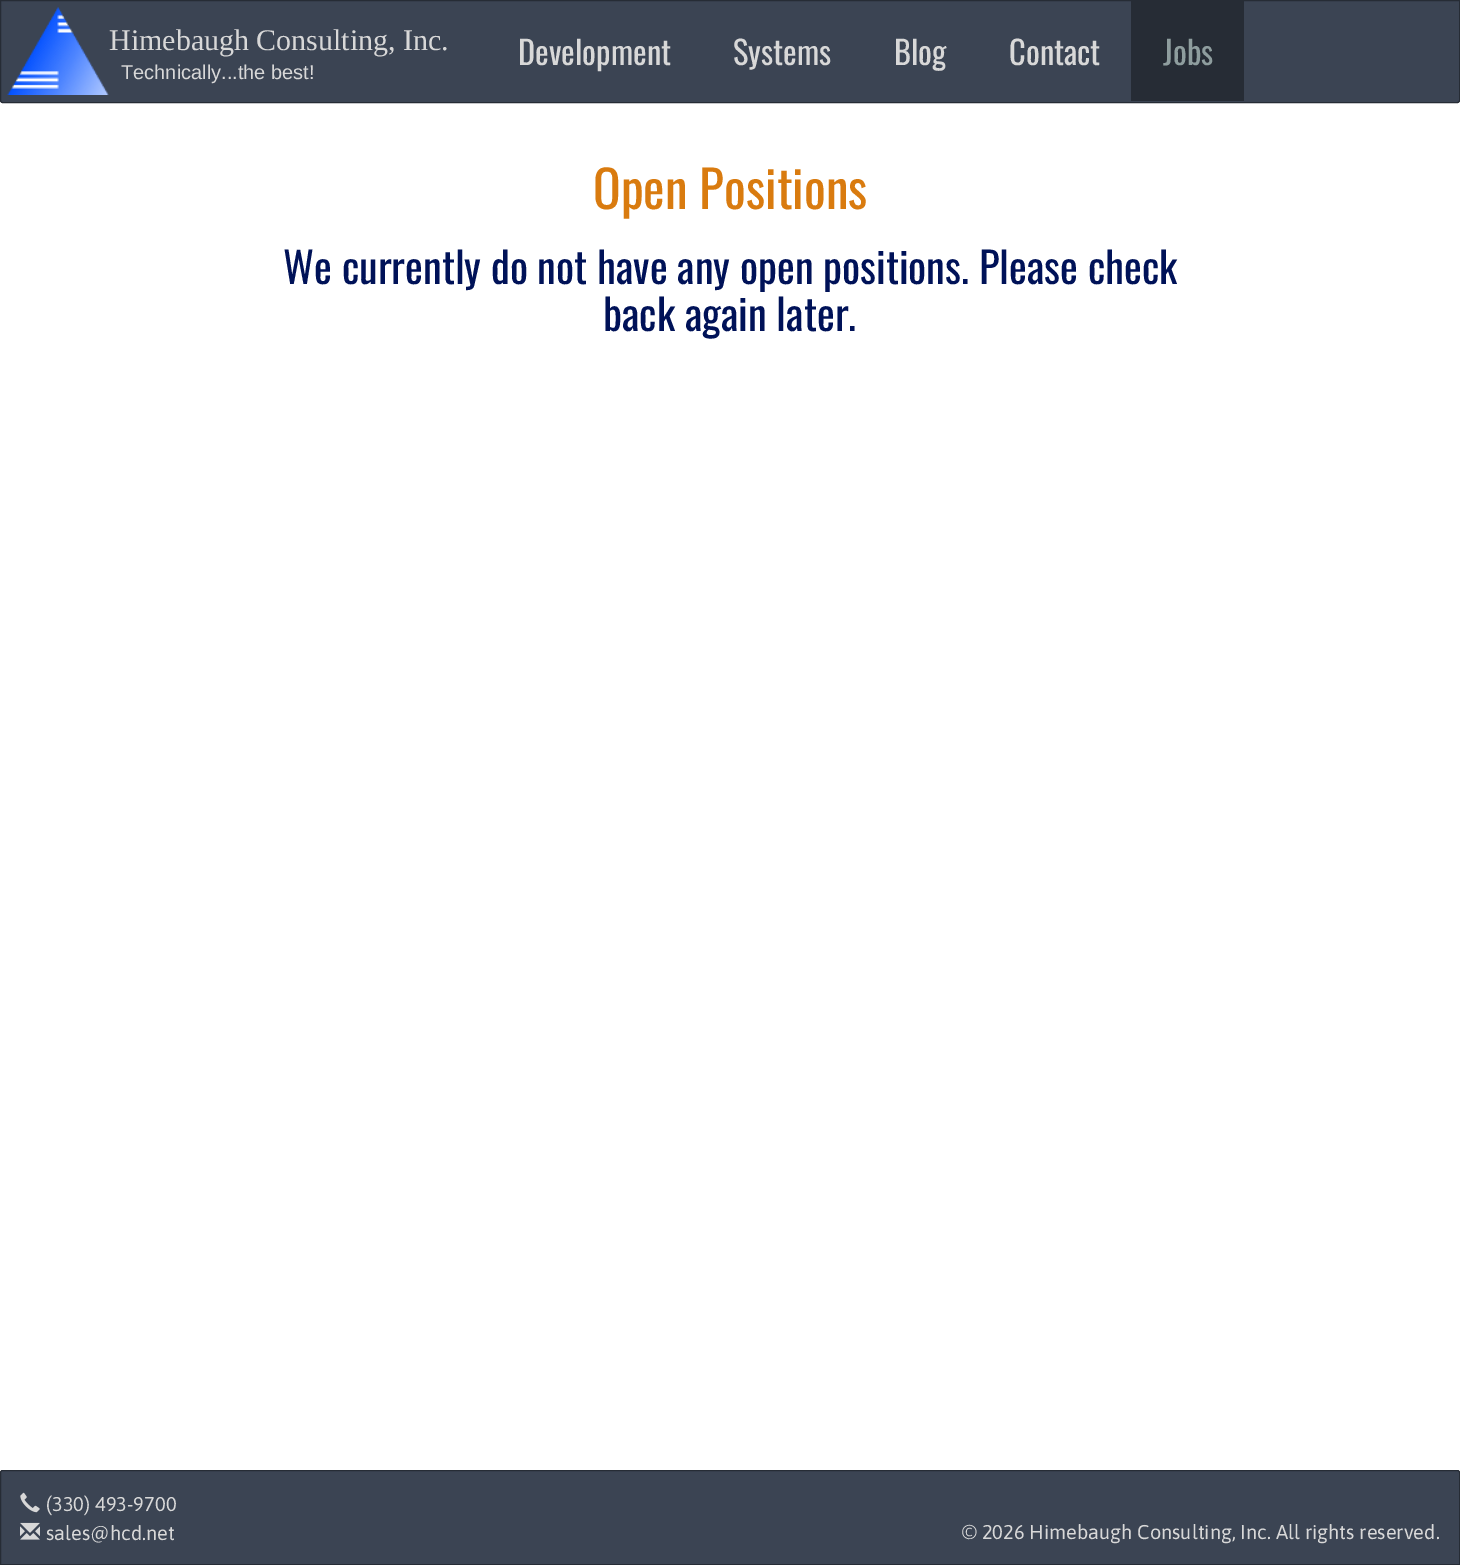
%!PS
<< /PageSize [1460 1565] >> setpagedevice
/picture { 5 dict begin { /h /w /y /x /name } { exch def } forall
  gsave x y translate w h scale
  w h 8 [w 0 0 h 0 0] name (r) file false 3 colorimage grestore end } def
0 1565 translate 1 -1 scale
4 setmiterlimit
1 setgray
0 0 1460 1565 rectfill
0.231 0.267 0.325 setrgbcolor
newpath 0.5 0.5 moveto 1459.5 0.5 lineto 1459.5 100.5 lineto 1459.5 101.5 1458.5 102.5 1457.5 102.5 curveto 2.5 102.5 lineto 1.5 102.5 0.5 101.5 0.5 100.5 curveto closepath gsave fill grestore
0.149 0.173 0.208 setrgbcolor
stroke
(img1.rgb) 7 7 102 88 picture
/LiberationSerif-Regular [30 0 0 -30 0 0] selectfont
0.847 setgray
109 50 moveto (Himebaugh Consulting, Inc.) show
/LiberationSans-Regular [20 0 0 -20 0 0] selectfont
121 79 moveto (Technically...the best!) show
/Oswald-Regular [32.5 0 0 -32.5 0 0] selectfont
518 65 moveto (Development) show
733 65 moveto (Systems) show
894 65 moveto (Blog) show
1009 65 moveto (Contact) show
0.149 0.173 0.208 setrgbcolor
1131 1 113 100 rectfill
0.557 0.616 0.62 setrgbcolor
1163 65 moveto (Jobs) show
/Oswald-Regular [51.25 0 0 -51.25 0 0] selectfont
0.851 0.482 0.059 setrgbcolor
593 209 moveto (Open Positions) show
/Oswald-Regular [42.5 0 0 -42.5 0 0] selectfont
0 0.071 0.345 setrgbcolor
283 284 moveto (We currently do not have any open positions. Please check) show
603 331 moveto (back again later.) show
0.231 0.267 0.325 setrgbcolor
newpath 2.5 1470.5 moveto 1457.5 1470.5 lineto 1458.5 1470.5 1459.5 1471.5 1459.5 1472.5 curveto 1459.5 1564.5 lineto 0.5 1564.5 lineto 0.5 1472.5 lineto 0.5 1471.5 1.5 1470.5 2.5 1470.5 curveto closepath gsave fill grestore
0.149 0.173 0.208 setrgbcolor
stroke
(img2.rgb) 20 1492 20 21 picture
/Asap-Regular [20 0 0 -20 0 0] selectfont
0.847 setgray
46 1511 moveto (\(330\) 493-9700) show
(img3.rgb) 20 1522 20 18 picture
46 1540 moveto (sales@hcd.net) show
962 1539 moveto (© 2026 Himebaugh Consulting, Inc. All rights reserved.) show
showpage
